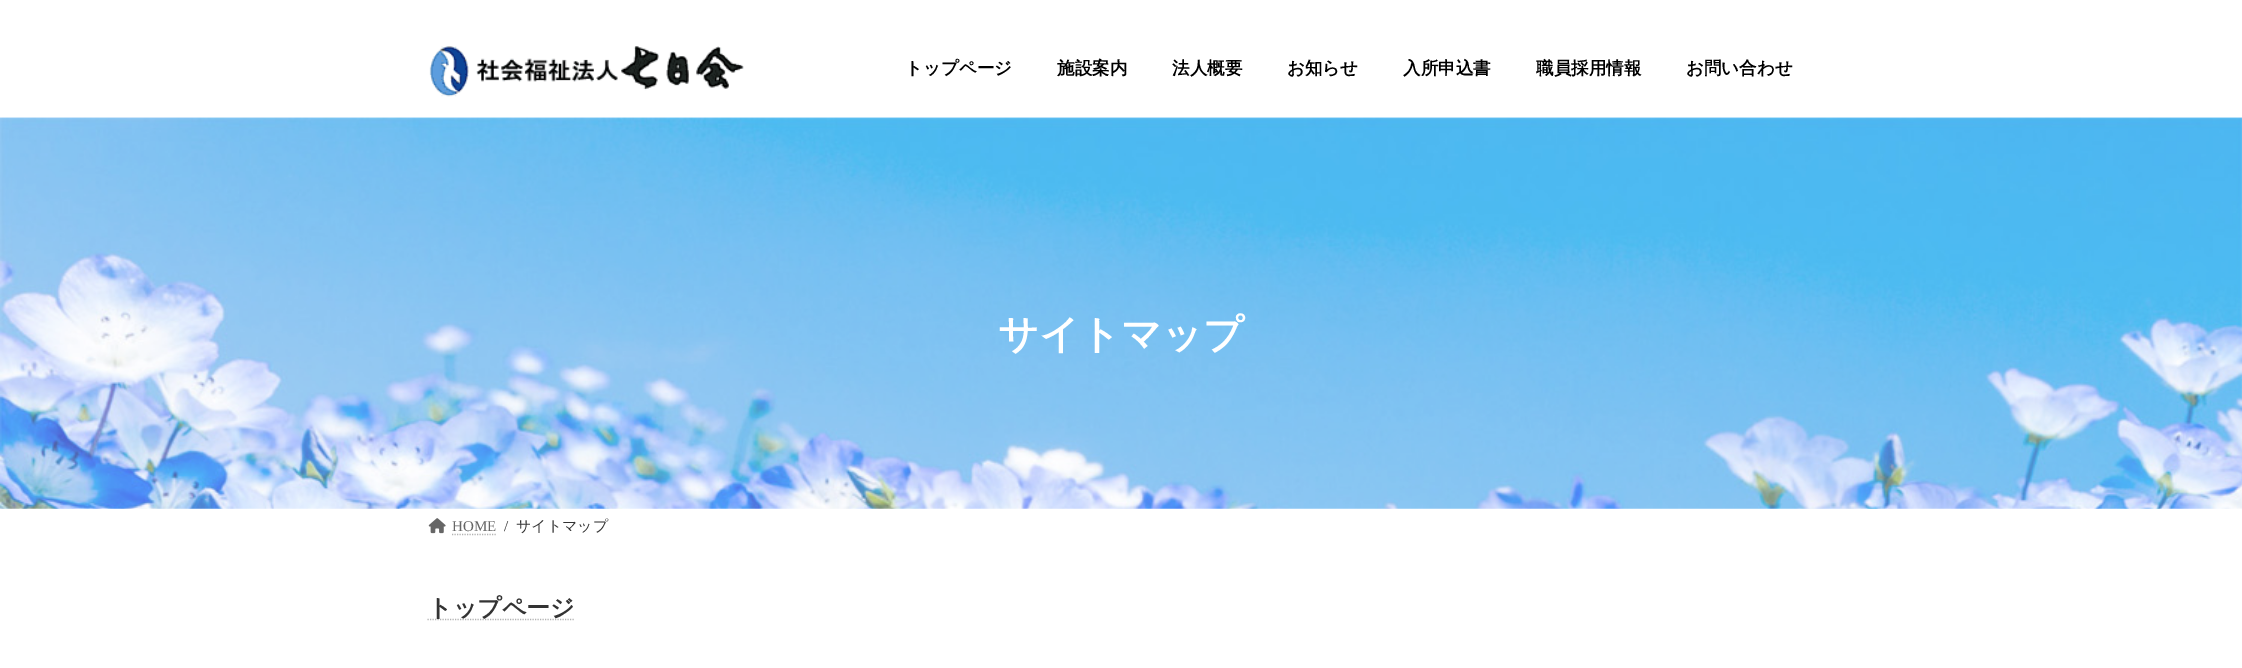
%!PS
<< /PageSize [2242 668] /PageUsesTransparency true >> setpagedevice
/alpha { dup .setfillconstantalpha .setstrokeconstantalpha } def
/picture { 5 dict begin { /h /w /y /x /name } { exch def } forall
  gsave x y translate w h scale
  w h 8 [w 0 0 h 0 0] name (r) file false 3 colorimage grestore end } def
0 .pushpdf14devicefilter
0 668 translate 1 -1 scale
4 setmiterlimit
1 setgray
0 0 2242 668 rectfill
(img2.rgb) 0 117 2242 392 picture
0.4 alpha
0 117 2242 1 rectfill
1 alpha
(img1.rgb) 429 46 315 51 picture
/WenQuanYiZenHei-Bold [17.5 0 0 -17.5 0 0] selectfont
0 setgray
905 74 moveto (トップページ) show
1057 74 moveto (施設案内) show
1172 74 moveto (法人概要) show
1287 74 moveto (お知らせ) show
1403 74 moveto (入所申込書) show
1536 74 moveto (職員採用情報) show
1686 74 moveto (お問い合わせ) show
/WenQuanYiZenHei-Bold [40 0 0 -40 0 0] selectfont
1 setgray
998 348 moveto (サイトマップ) show
(img3.rgb) 428 518 18 16 picture
/LiberationSerif-Regular [15 0 0 -15 0 0] selectfont
0.4 setgray
452 531 moveto (HOME) show
0.702 setgray
1.2 setlinewidth
[1.25 1.25] 0 setdash
newpath 452 534.5 moveto 496.5 534.5 lineto stroke
0.2 setgray
504 531 moveto (/) show
/WenQuanYiZenHei-Medium [15 0 0 -15 0 0] selectfont
516 531 moveto (サイトマップ) show
0.702 setgray
newpath 427.5 619.5 moveto 574 619.5 lineto stroke
/WenQuanYiZenHei-Bold [24 0 0 -24 0 0] selectfont
0.2 setgray
428 616 moveto (トップページ) show
.poppdf14devicefilter showpage
